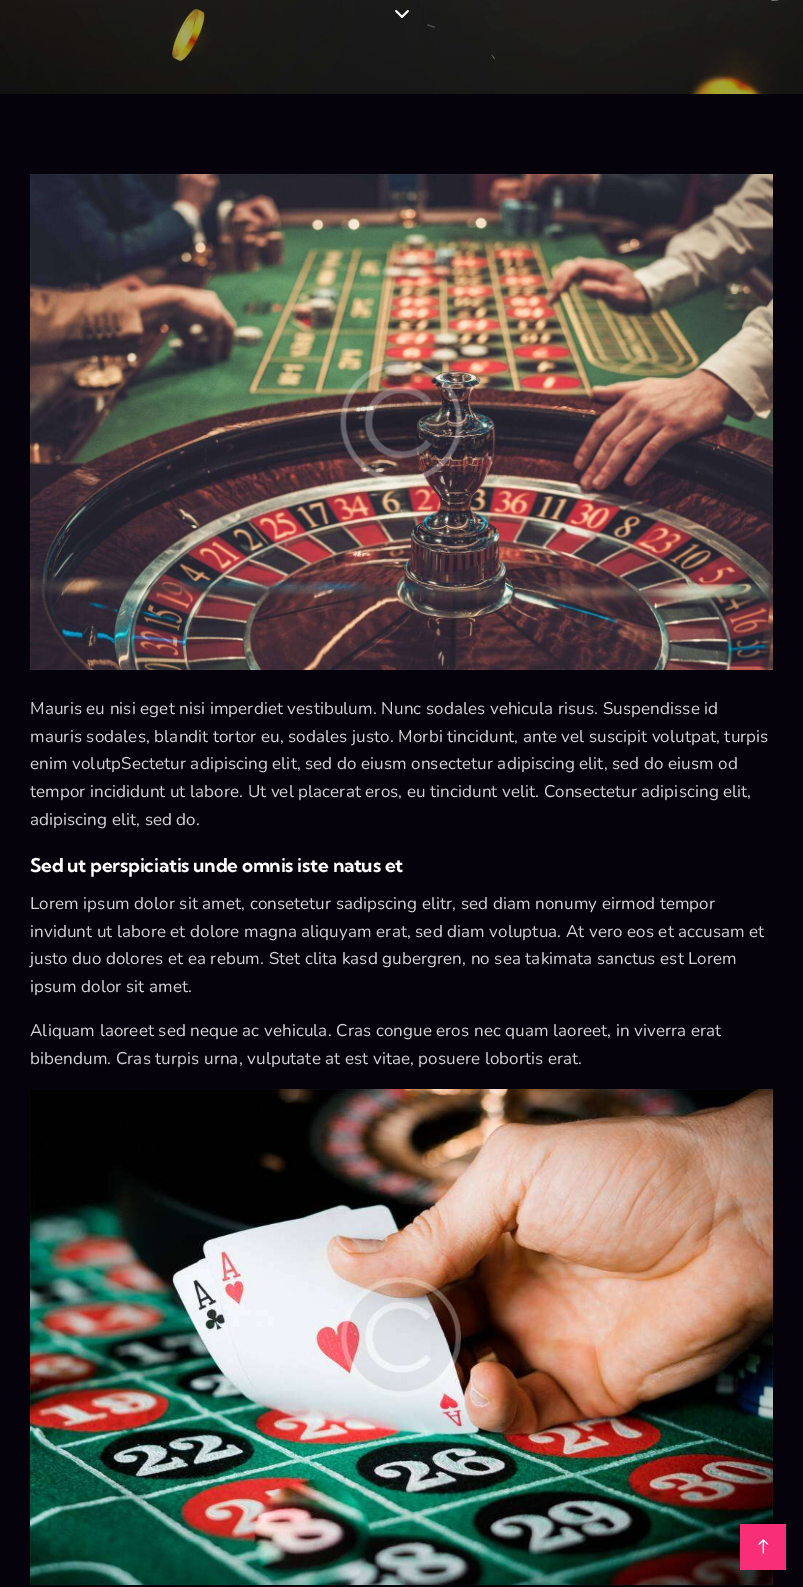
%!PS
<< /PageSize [803 1587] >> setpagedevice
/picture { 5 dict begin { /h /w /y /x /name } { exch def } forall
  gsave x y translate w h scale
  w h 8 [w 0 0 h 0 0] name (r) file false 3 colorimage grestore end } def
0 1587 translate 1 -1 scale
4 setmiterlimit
0.024 0.008 0.047 setrgbcolor
0 0 803 1587 rectfill
(img1.rgb) 0 0 803 94 picture
(img2.rgb) 395 9 14 9 picture
(img3.rgb) 30 174 743 496 picture
/Nunito-Regular [17 0 0 -17 0 0] selectfont
0.824 0.827 0.835 setrgbcolor
30 714 moveto 0.1 0 (Mauris eu nisi eget nisi imperdiet vestibulum. Nunc sodales vehicula risus. Suspendisse id) ashow
30 742 moveto 0.1 0 (mauris sodales, blandit tortor eu, sodales justo. Morbi tincidunt, ante vel suscipit volutpat, turpis) ashow
30 769 moveto 0.1 0 (enim volutpSectetur adipiscing elit, sed do eiusm onsectetur adipiscing elit, sed do eiusm od) ashow
30 797 moveto 0.1 0 (tempor incididunt ut labore. Ut vel placerat eros, eu tincidunt velit. Consectetur adipiscing elit,) ashow
30 825 moveto 0.1 0 (adipiscing elit, sed do.) ashow
/KumbhSans-Bold [19 0 0 -19 0 0] selectfont
1 setgray
30 872 moveto -0.25 0 (Sed ut perspiciatis unde omnis iste natus et) ashow
/Nunito-Regular [17 0 0 -17 0 0] selectfont
0.824 0.827 0.835 setrgbcolor
30 909 moveto 0.1 0 (Lorem ipsum dolor sit amet, consetetur sadipscing elitr, sed diam nonumy eirmod tempor) ashow
30 937 moveto 0.1 0 (invidunt ut labore et dolore magna aliquyam erat, sed diam voluptua. At vero eos et accusam et) ashow
30 964 moveto 0.1 0 (justo duo dolores et ea rebum. Stet clita kasd gubergren, no sea takimata sanctus est Lorem) ashow
30 992 moveto 0.1 0 (ipsum dolor sit amet.) ashow
30 1036 moveto 0.1 0 (Aliquam laoreet sed neque ac vehicula. Cras congue eros nec quam laoreet, in viverra erat) ashow
30 1064 moveto 0.1 0 (bibendum. Cras turpis urna, vulputate at est vitae, posuere lobortis erat.) ashow
(img4.rgb) 30 1089 743 496 picture
0.973 0.184 0.467 setrgbcolor
740 1524 46 46 rectfill
(img5.rgb) 758 1539 11 15 picture
showpage
